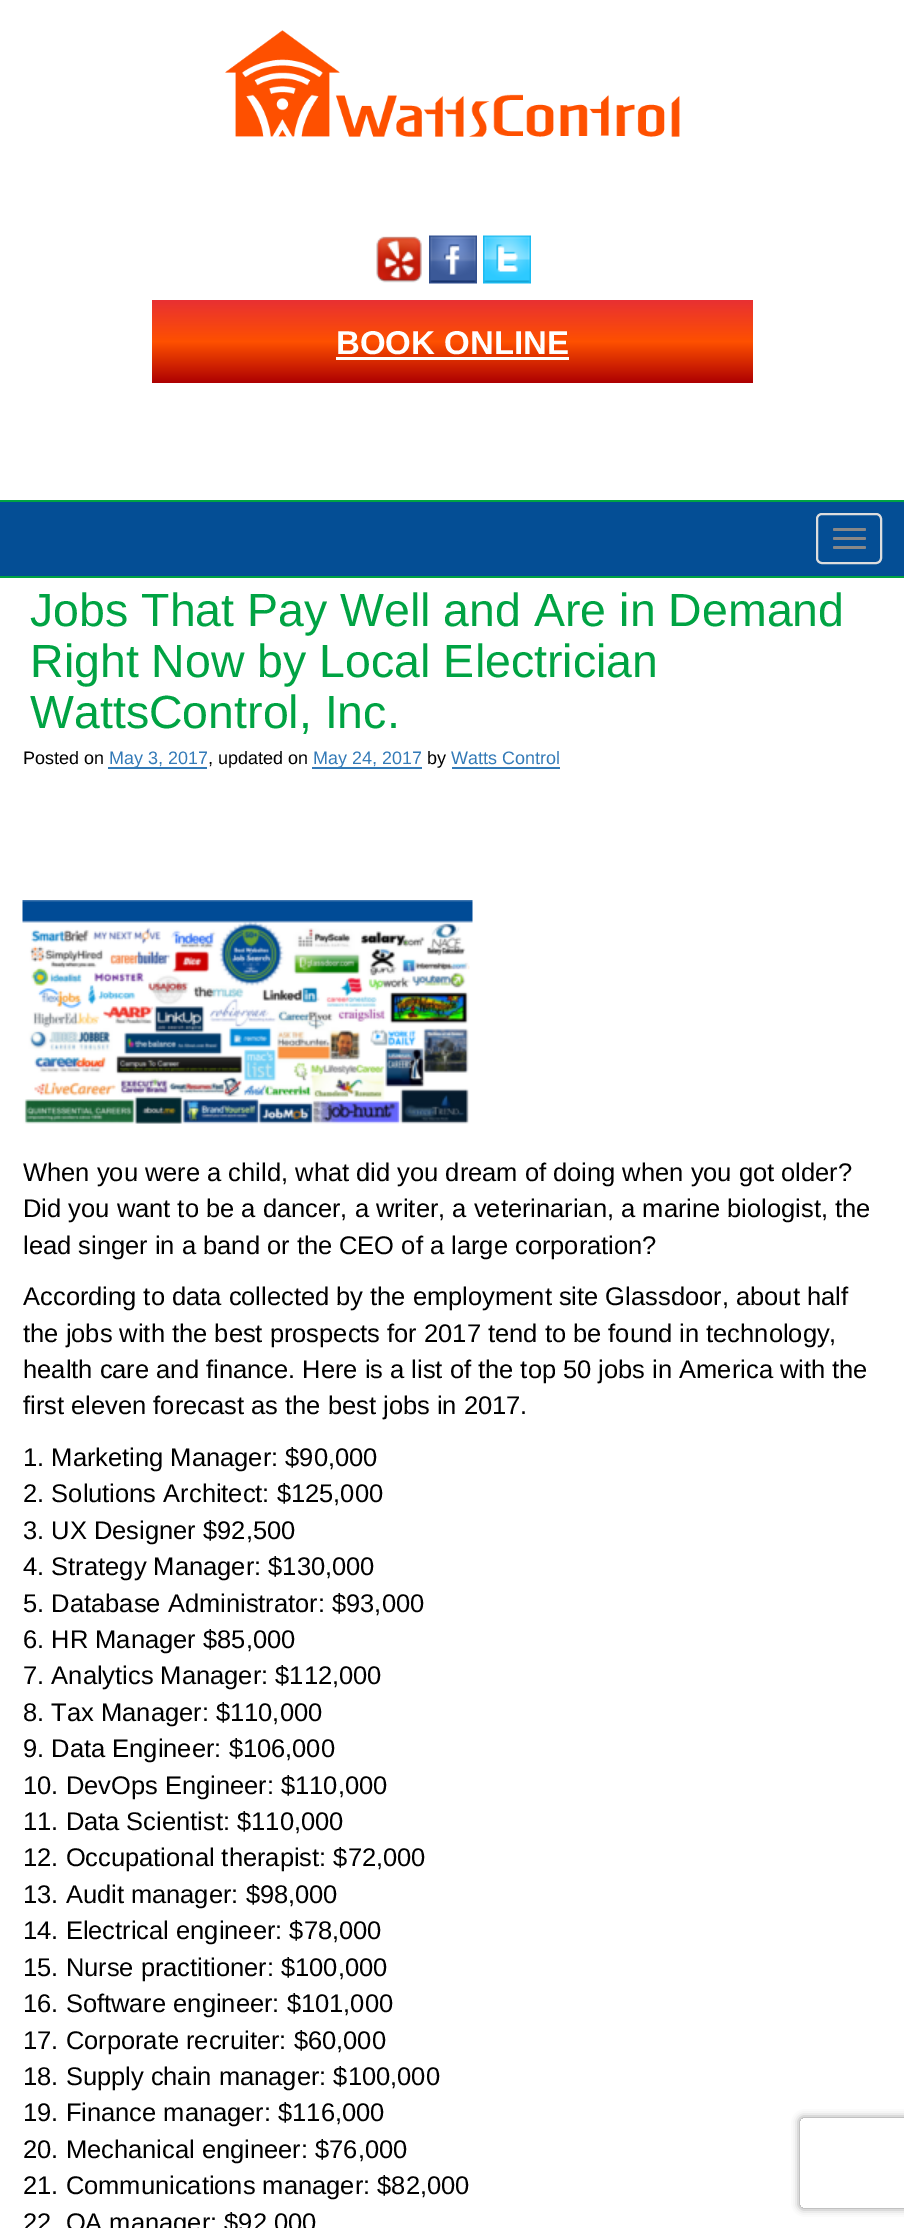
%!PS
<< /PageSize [904 2228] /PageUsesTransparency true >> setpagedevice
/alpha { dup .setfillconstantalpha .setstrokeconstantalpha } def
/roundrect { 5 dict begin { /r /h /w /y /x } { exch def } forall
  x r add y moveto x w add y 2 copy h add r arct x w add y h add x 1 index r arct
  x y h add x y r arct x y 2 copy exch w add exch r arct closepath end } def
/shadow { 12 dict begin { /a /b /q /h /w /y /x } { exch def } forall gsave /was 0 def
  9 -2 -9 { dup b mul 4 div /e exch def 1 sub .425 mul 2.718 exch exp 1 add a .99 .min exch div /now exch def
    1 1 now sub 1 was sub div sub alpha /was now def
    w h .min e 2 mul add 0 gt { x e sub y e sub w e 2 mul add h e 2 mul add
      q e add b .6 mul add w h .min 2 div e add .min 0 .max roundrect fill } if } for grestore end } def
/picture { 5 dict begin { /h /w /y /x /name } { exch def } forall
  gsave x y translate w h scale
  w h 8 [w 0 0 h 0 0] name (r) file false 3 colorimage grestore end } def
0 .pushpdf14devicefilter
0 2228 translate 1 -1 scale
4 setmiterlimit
1 setgray
0 0 904 2228 rectfill
(img1.rgb) 225 30 455 107 picture
(img2.rgb) 376 236 46 47 picture
(img3.rgb) 429 235 48 49 picture
(img4.rgb) 483 235 48 49 picture
gsave newpath 152 300 moveto 753 300 lineto 753 383 lineto 152 383 lineto closepath clip newpath
<< /ShadingType 2 /ColorSpace /DeviceRGB /Coords [452 300 452 383] /Extend [true true] /Function << /FunctionType 3 /Domain [0 1] /Functions [<< /FunctionType 2 /Domain [0 1] /C0 [0.91 0.188 0.2] /C1 [0.996 0.314 0] /N 1 >> << /FunctionType 2 /Domain [0 1] /C0 [0.996 0.314 0] /C1 [0.678 0 0.008] /N 1 >>] /Bounds [0.5] /Encode [0 1 0 1] >> >> shfill grestore
/LiberationSans-Bold [33 0 0 -33 0 0] selectfont
336 354 moveto (BOOK ONLINE) show
336 357 233 3 rectfill
0.016 0.306 0.584 setrgbcolor
0 502 904 74 rectfill
0 0.639 0.263 setrgbcolor
0 500 904 2 rectfill
0 576 904 2 rectfill
0.867 setgray
2 setlinewidth
817 514 64 49 5 roundrect stroke
0.533 setgray
833 528 33 3 1.5 roundrect fill
833 537 33 3 1.5 roundrect fill
833 546 33 3 1.5 roundrect fill
/LiberationSans-Regular [46.5 0 0 -46.5 0 0] selectfont
0 0.639 0.263 setrgbcolor
30 626 moveto (Jobs That Pay Well and Are in Demand) show
30 677 moveto (Right Now by Local Electrician) show
30 728 moveto (WattsControl, Inc.) show
/LiberationSans-Regular [18 0 0 -18 0 0] selectfont
0 setgray
23 764 moveto (Posted on) show
0.2 0.478 0.718 setrgbcolor
108 767 99 2 rectfill
109 764 moveto (May 3, 2017) show
0 setgray
208 764 moveto (, updated on) show
0.2 0.478 0.718 setrgbcolor
312 767 110 2 rectfill
313 764 moveto (May 24, 2017) show
0 setgray
427 764 moveto (by) show
0.2 0.478 0.718 setrgbcolor
451 764 moveto (Watts Control) show
452 767 108 2 rectfill
(img5.rgb) 22 900 451 224 picture
/LiberationSans-Regular [25.5 0 0 -25.5 0 0] selectfont
0 setgray
23 1181 moveto (When you were a child, what did you dream of doing when you got older?) show
23 1217 moveto (Did you want to be a dancer, a writer, a veterinarian, a marine biologist, the) show
23 1254 moveto (lead singer in a band or the CEO of a large corporation?) show
23 1305 moveto (According to data collected by the employment site Glassdoor, about half) show
23 1342 moveto (the jobs with the best prospects for 2017 tend to be found in technology,) show
23 1378 moveto (health care and finance. Here is a list of the top 50 jobs in America with the) show
23 1414 moveto (first eleven forecast as the best jobs in 2017.) show
23 1466 moveto (1. Marketing Manager: $90,000) show
23 1502 moveto (2. Solutions Architect: $125,000) show
23 1539 moveto (3. UX Designer $92,500) show
23 1575 moveto (4. Strategy Manager: $130,000) show
23 1612 moveto (5. Database Administrator: $93,000) show
23 1648 moveto (6. HR Manager $85,000) show
23 1684 moveto (7. Analytics Manager: $112,000) show
23 1721 moveto (8. Tax Manager: $110,000) show
23 1757 moveto (9. Data Engineer: $106,000) show
23 1794 moveto (10. DevOps Engineer: $110,000) show
23 1830 moveto (11. Data Scientist: $110,000) show
23 1866 moveto (12. Occupational therapist: $72,000) show
23 1903 moveto (13. Audit manager: $98,000) show
23 1939 moveto (14. Electrical engineer: $78,000) show
23 1976 moveto (15. Nurse practitioner: $100,000) show
23 2012 moveto (16. Software engineer: $101,000) show
23 2049 moveto (17. Corporate recruiter: $60,000) show
23 2085 moveto (18. Supply chain manager: $100,000) show
23 2121 moveto (19. Finance manager: $116,000) show
23 2158 moveto (20. Mechanical engineer: $76,000) show
23 2194 moveto (21. Communications manager: $82,000) show
23 2231 moveto (22. QA manager: $92,000) show
gsave
newpath 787 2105 moveto 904 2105 lineto 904 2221 lineto 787 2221 lineto closepath 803 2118 moveto 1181 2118 lineto 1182.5 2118 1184 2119.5 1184 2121 curveto 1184 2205 lineto 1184 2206.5 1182.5 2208 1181 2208 curveto 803 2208 lineto 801.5 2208 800 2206.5 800 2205 curveto 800 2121 lineto 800 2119.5 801.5 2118 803 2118 curveto closepath eoclip newpath
0.502 setgray
800 2118 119 90 3 4 1 shadow
grestore
.poppdf14devicefilter showpage
